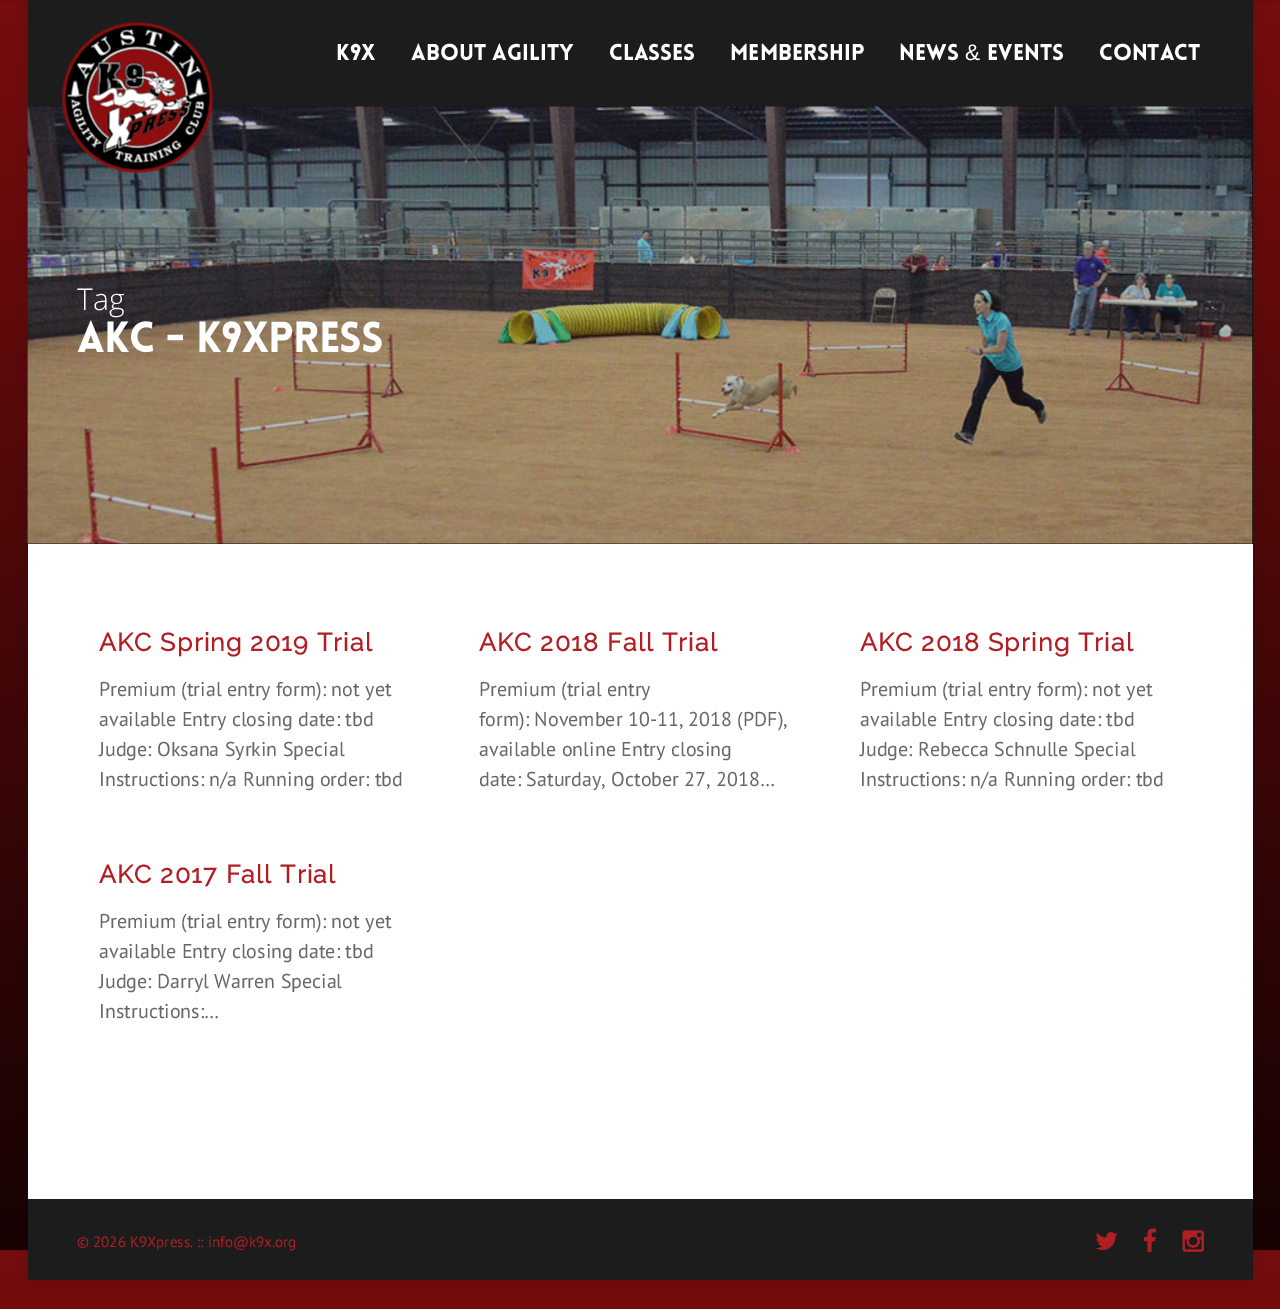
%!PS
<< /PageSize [1280 1309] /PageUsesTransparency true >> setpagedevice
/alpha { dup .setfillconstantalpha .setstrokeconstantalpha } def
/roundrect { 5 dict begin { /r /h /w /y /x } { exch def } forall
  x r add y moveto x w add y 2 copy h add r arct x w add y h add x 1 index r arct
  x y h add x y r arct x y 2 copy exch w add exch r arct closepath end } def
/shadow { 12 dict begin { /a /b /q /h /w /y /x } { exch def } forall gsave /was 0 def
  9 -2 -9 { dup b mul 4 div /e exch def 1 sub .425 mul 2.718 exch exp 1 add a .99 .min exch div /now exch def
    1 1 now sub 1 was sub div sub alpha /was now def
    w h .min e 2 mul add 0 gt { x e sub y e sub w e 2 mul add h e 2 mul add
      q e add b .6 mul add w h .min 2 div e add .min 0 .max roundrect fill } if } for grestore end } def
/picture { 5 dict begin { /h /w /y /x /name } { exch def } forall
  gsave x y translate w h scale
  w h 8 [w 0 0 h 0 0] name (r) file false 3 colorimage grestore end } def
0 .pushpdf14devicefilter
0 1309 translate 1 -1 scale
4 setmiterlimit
1 setgray
0 0 1280 1309 rectfill
(img1.rgb) 0 0 1280 1309 picture
0 setgray
28 0 1225 1280 0 9.5 0.15 shadow
0.11 setgray
28 0 1225 106 rectfill
0 setgray
28 106 1225 438 rectfill
(img3.rgb) 27 106 1226 438 picture
0.3 alpha
0.176 setgray
28 106 1225 438 rectfill
1 alpha
(img2.rgb) 62 22 151 151 picture
/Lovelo-Black [22.5 0 0 -22.5 0 0] selectfont
1 setgray
336 60 moveto (K9X) show
411 60 moveto (About Agility) show
609 60 moveto (Classes) show
730 60 moveto (Membership) show
899 60 moveto (News) show
/LiberationSans-Regular [22.5 0 0 -22.5 0 0] selectfont
965 60 moveto (&) show
/Lovelo-Black [22.5 0 0 -22.5 0 0] selectfont
987 60 moveto (Events) show
1099 60 moveto (Contact) show
/OpenSans-Light [30 0 0 -30 0 0] selectfont
77 310 moveto (Tag) show
/Lovelo-Black [42.5 0 0 -42.5 0 0] selectfont
77 352 moveto -0.6 0 (akc - K9Xpress) ashow
28 544 1225 655 rectfill
/Raleway-Bold [25 0 0 -25 0 0] selectfont
0.694 0.122 0.141 setrgbcolor
99 651 moveto 1.25 0 (AKC Spring 2019 Trial) ashow
/PTSans-Regular [20 0 0 -20 0 0] selectfont
0.404 setgray
99 696 moveto (Premium \(trial entry form\): not yet) show
99 726 moveto (available Entry closing date: tbd) show
99 756 moveto (Judge: Oksana Syrkin Special) show
99 786 moveto (Instructions: n/a Running order: tbd) show
/Raleway-Bold [25 0 0 -25 0 0] selectfont
0.694 0.122 0.141 setrgbcolor
479 651 moveto 1.25 0 (AKC 2018 Fall Trial) ashow
/PTSans-Regular [20 0 0 -20 0 0] selectfont
0.404 setgray
479 696 moveto (Premium \(trial entry) show
479 726 moveto (form\): November 10-11, 2018 \(PDF\),) show
479 756 moveto (available online Entry closing) show
479 786 moveto (date: Saturday, October 27, 2018…) show
/Raleway-Bold [25 0 0 -25 0 0] selectfont
0.694 0.122 0.141 setrgbcolor
860 651 moveto 1.25 0 (AKC 2018 Spring Trial) ashow
/PTSans-Regular [20 0 0 -20 0 0] selectfont
0.404 setgray
860 696 moveto (Premium \(trial entry form\): not yet) show
860 726 moveto (available Entry closing date: tbd) show
860 756 moveto (Judge: Rebecca Schnulle Special) show
860 786 moveto (Instructions: n/a Running order: tbd) show
/Raleway-Bold [25 0 0 -25 0 0] selectfont
0.694 0.122 0.141 setrgbcolor
99 883 moveto 1.25 0 (AKC 2017 Fall Trial) ashow
/PTSans-Regular [20 0 0 -20 0 0] selectfont
0.404 setgray
99 928 moveto (Premium \(trial entry form\): not yet) show
99 958 moveto (available Entry closing date: tbd) show
99 988 moveto (Judge: Darryl Warren Special) show
99 1018 moveto (Instructions:…) show
0.11 setgray
28 1199 1225 81 rectfill
/PTSans-Regular [15 0 0 -15 0 0] selectfont
0.694 0.122 0.141 setrgbcolor
77 1247 moveto (© 2026 K9Xpress. :: info@k9x.org) show
(img4.rgb) 1095 1232 23 18 picture
(img5.rgb) 1143 1228 13 24 picture
(img6.rgb) 1182 1230 22 22 picture
.poppdf14devicefilter showpage
